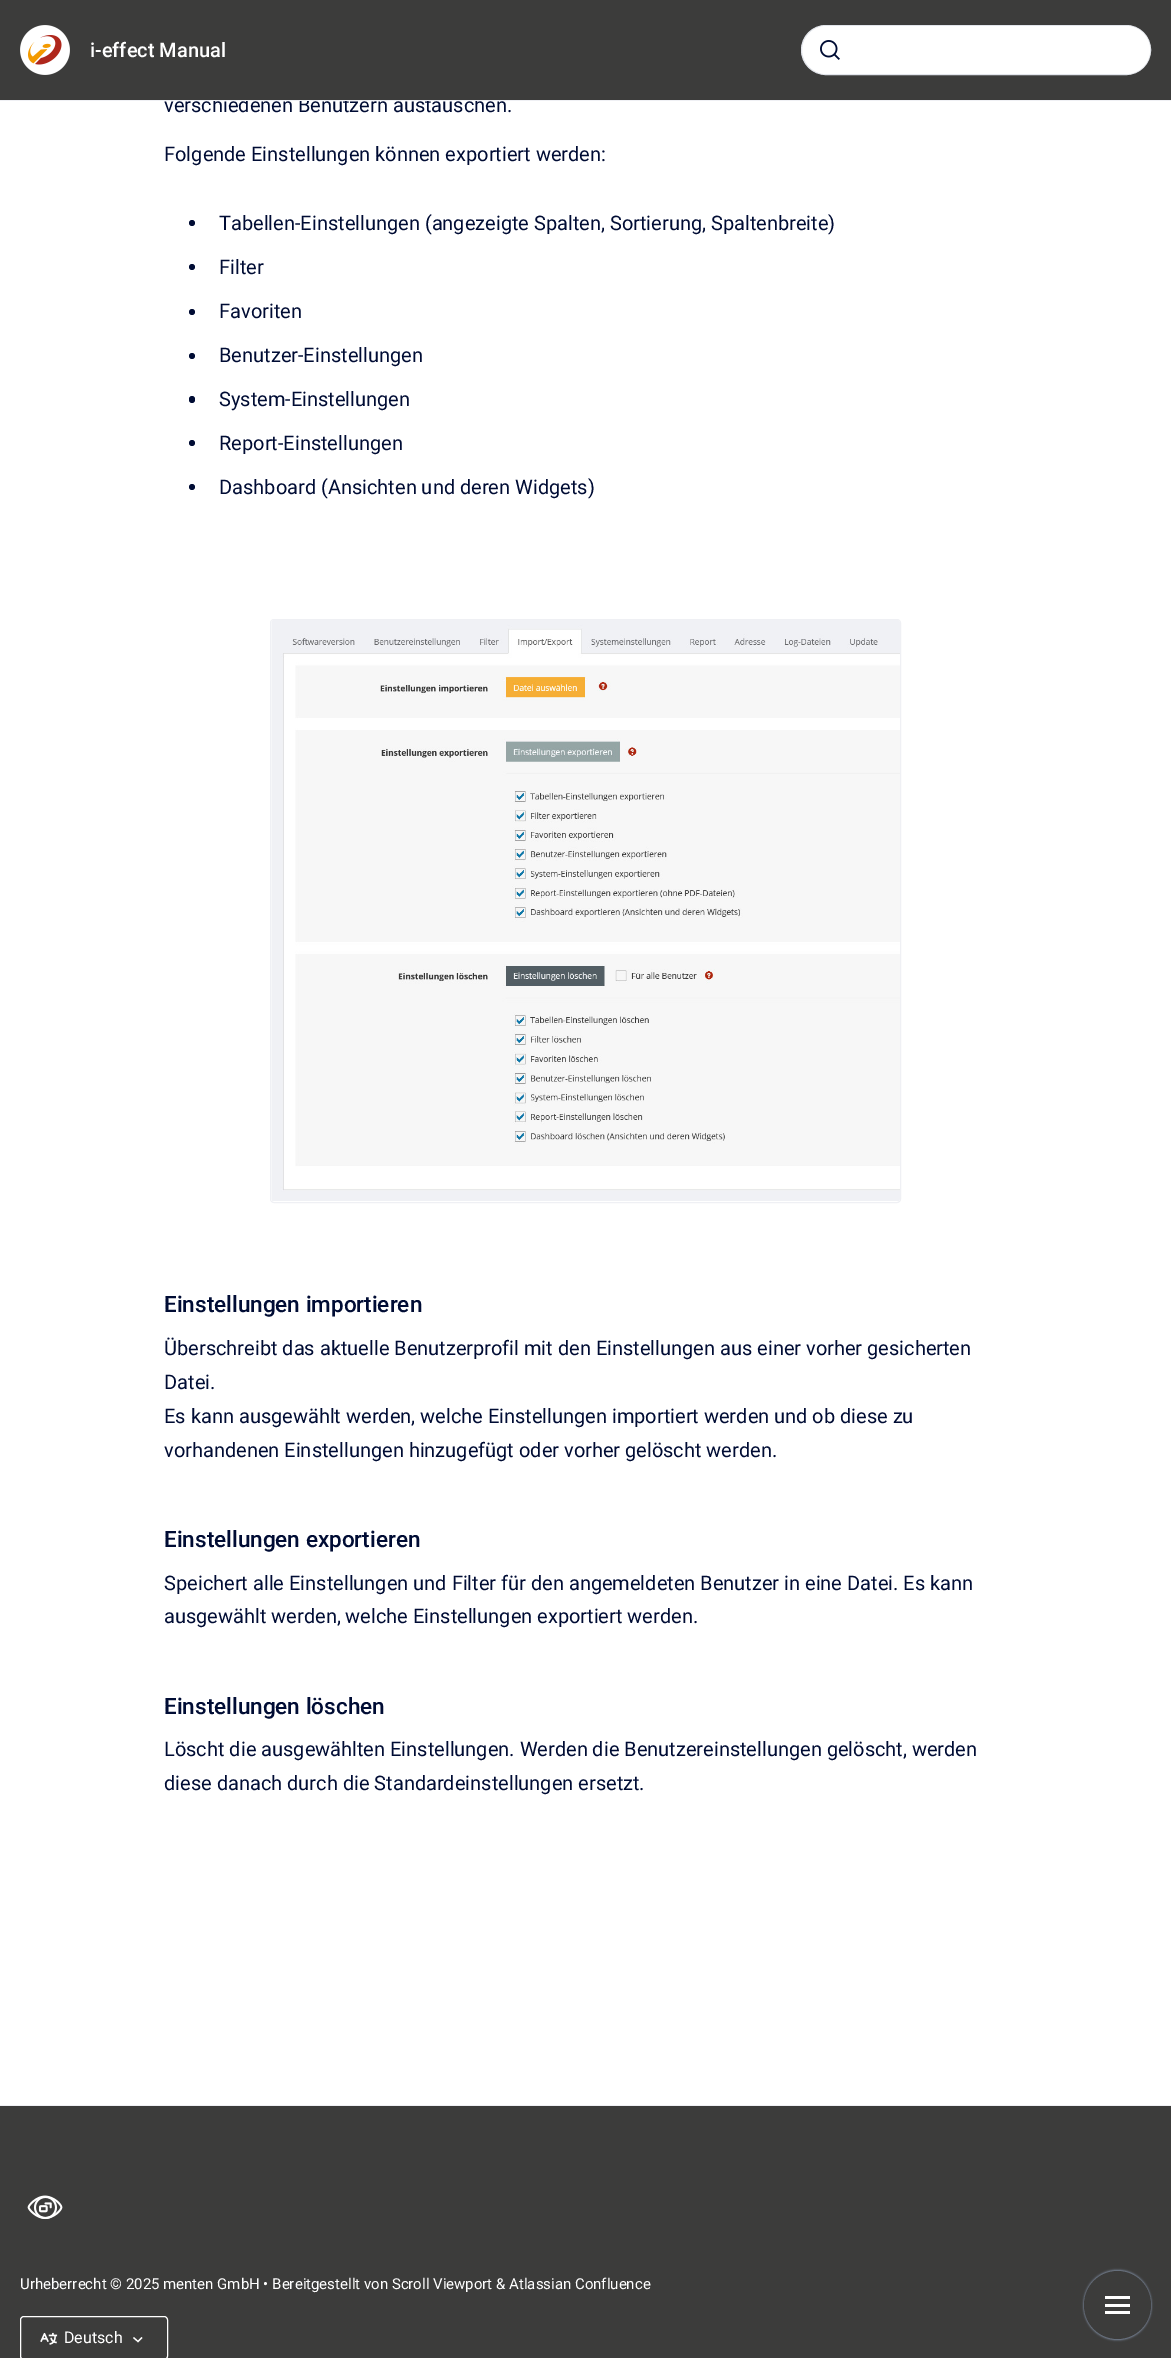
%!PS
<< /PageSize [1171 2358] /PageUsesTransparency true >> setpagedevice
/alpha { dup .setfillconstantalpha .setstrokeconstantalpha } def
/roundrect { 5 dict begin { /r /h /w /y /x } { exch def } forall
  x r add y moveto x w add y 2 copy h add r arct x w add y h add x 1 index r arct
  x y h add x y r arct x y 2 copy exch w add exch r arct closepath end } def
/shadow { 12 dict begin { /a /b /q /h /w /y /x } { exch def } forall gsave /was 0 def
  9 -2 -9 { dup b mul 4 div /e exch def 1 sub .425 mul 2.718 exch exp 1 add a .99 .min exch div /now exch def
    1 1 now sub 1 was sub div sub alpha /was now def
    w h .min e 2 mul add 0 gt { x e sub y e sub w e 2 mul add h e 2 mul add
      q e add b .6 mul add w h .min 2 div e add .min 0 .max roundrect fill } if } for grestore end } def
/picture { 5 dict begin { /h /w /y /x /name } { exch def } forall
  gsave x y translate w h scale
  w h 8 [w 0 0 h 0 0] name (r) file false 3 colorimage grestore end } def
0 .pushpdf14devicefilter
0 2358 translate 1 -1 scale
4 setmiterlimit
1 setgray
0 0 1171 2358 rectfill
/Roboto-Regular [20 0 0 -20 0 0] selectfont
0 0.047 0.204 setrgbcolor
164 112 moveto (verschiedenen Benutzern austauschen.) show
0.235 0.235 0.231 setrgbcolor
0 0 1171 100 rectfill
0.937 0.941 0.957 setrgbcolor
0 100 1171 1 rectfill
(img1.rgb) 20 25 50 50 picture
/Roboto-Medium [20 0 0 -20 0 0] selectfont
1 setgray
90 57 moveto (i-effect Manual) show
801.5 25.5 349 49 24.5 roundrect gsave fill grestore
0.886 0.898 0.922 setrgbcolor
stroke
1 setgray
803 26 347 48 24 roundrect fill
(img2.rgb) 820 40 20 20 picture
/Roboto-Regular [20 0 0 -20 0 0] selectfont
0 0.047 0.204 setrgbcolor
164 161 moveto (Folgende Einstellungen können exportiert werden:) show
newpath 192 223 3 0 360 arc closepath fill
219 230 moveto (Tabellen-Einstellungen \(angezeigte Spalten, Sortierung, Spaltenbreite\)) show
newpath 192 267 3 0 360 arc closepath fill
219 274 moveto (Filter) show
newpath 192 312 3 0 360 arc closepath fill
219 318 moveto (Favoriten) show
newpath 192 356 3 0 360 arc closepath fill
219 362 moveto (Benutzer-Einstellungen) show
189 396 6 7 3 roundrect fill
219 406 moveto (System-Einstellungen) show
newpath 192 443 3 0 360 arc closepath fill
219 450 moveto (Report-Einstellungen) show
newpath 192 487 3 0 360 arc closepath fill
219 494 moveto (Dashboard \(Ansichten und deren Widgets\)) show
0.937 0.941 0.957 setrgbcolor
270.5 619.5 630 583 3.5 roundrect stroke
(img3.rgb) 271 620 629 581 picture
/Roboto-Medium [22.5 0 0 -22.5 0 0] selectfont
0 0.047 0.204 setrgbcolor
164 1312 moveto (Einstellungen importieren) show
/Roboto-Regular [20 0 0 -20 0 0] selectfont
164 1355 moveto (Überschreibt das aktuelle Benutzerprofil mit den Einstellungen aus einer vorher gesicherten) show
164 1389 moveto (Datei.) show
164 1423 moveto (Es kann ausgewählt werden, welche Einstellungen importiert werden und ob diese zu) show
164 1457 moveto (vorhandenen Einstellungen hinzugefügt oder vorher gelöscht werden.) show
/Roboto-Medium [22.5 0 0 -22.5 0 0] selectfont
164 1547 moveto (Einstellungen exportieren) show
/Roboto-Regular [20 0 0 -20 0 0] selectfont
164 1590 moveto (Speichert alle Einstellungen und Filter für den angemeldeten Benutzer in eine Datei. Es kann) show
164 1623 moveto (ausgewählt werden, welche Einstellungen exportiert werden.) show
/Roboto-Medium [22.5 0 0 -22.5 0 0] selectfont
164 1714 moveto (Einstellungen löschen) show
/Roboto-Regular [20 0 0 -20 0 0] selectfont
164 1756 moveto (Löscht die ausgewählten Einstellungen. Werden die Benutzereinstellungen gelöscht, werden) show
164 1790 moveto (diese danach durch die Standardeinstellungen ersetzt.) show
0.235 0.235 0.231 setrgbcolor
0 2106 1171 252 rectfill
0.937 0.941 0.957 setrgbcolor
0 2105 1171 1 rectfill
(img4.rgb) 27 2195 36 25 picture
/Roboto-Regular [15 0 0 -15 0 0] selectfont
1 setgray
20 2289 moveto (Urheberrecht © 2025 menten GmbH • Bereitgestellt von Scroll Viewport & Atlassian Confluence) show
20.5 2316.5 147 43 3.5 roundrect stroke
(img5.rgb) 40 2332 18 13 picture
/Roboto-Regular [16 0 0 -16 0 0] selectfont
64 2343 moveto (Deutsch) show
1.2 setlinewidth
2 setlinecap
newpath 141.5 2338 moveto 138 2341.5 lineto 134 2338 lineto stroke
0.478 0.525 0.604 setrgbcolor
1084 2270 67 68 33.5 1 1 shadow
1084 2273 67 67 33.5 1 1 shadow
0.235 0.235 0.231 setrgbcolor
1084 2271 67 68 33.5 roundrect fill
1 setgray
1105 2296 25 3 rectfill
1105 2304 25 3 rectfill
1105 2311 25 3 rectfill
.poppdf14devicefilter showpage
